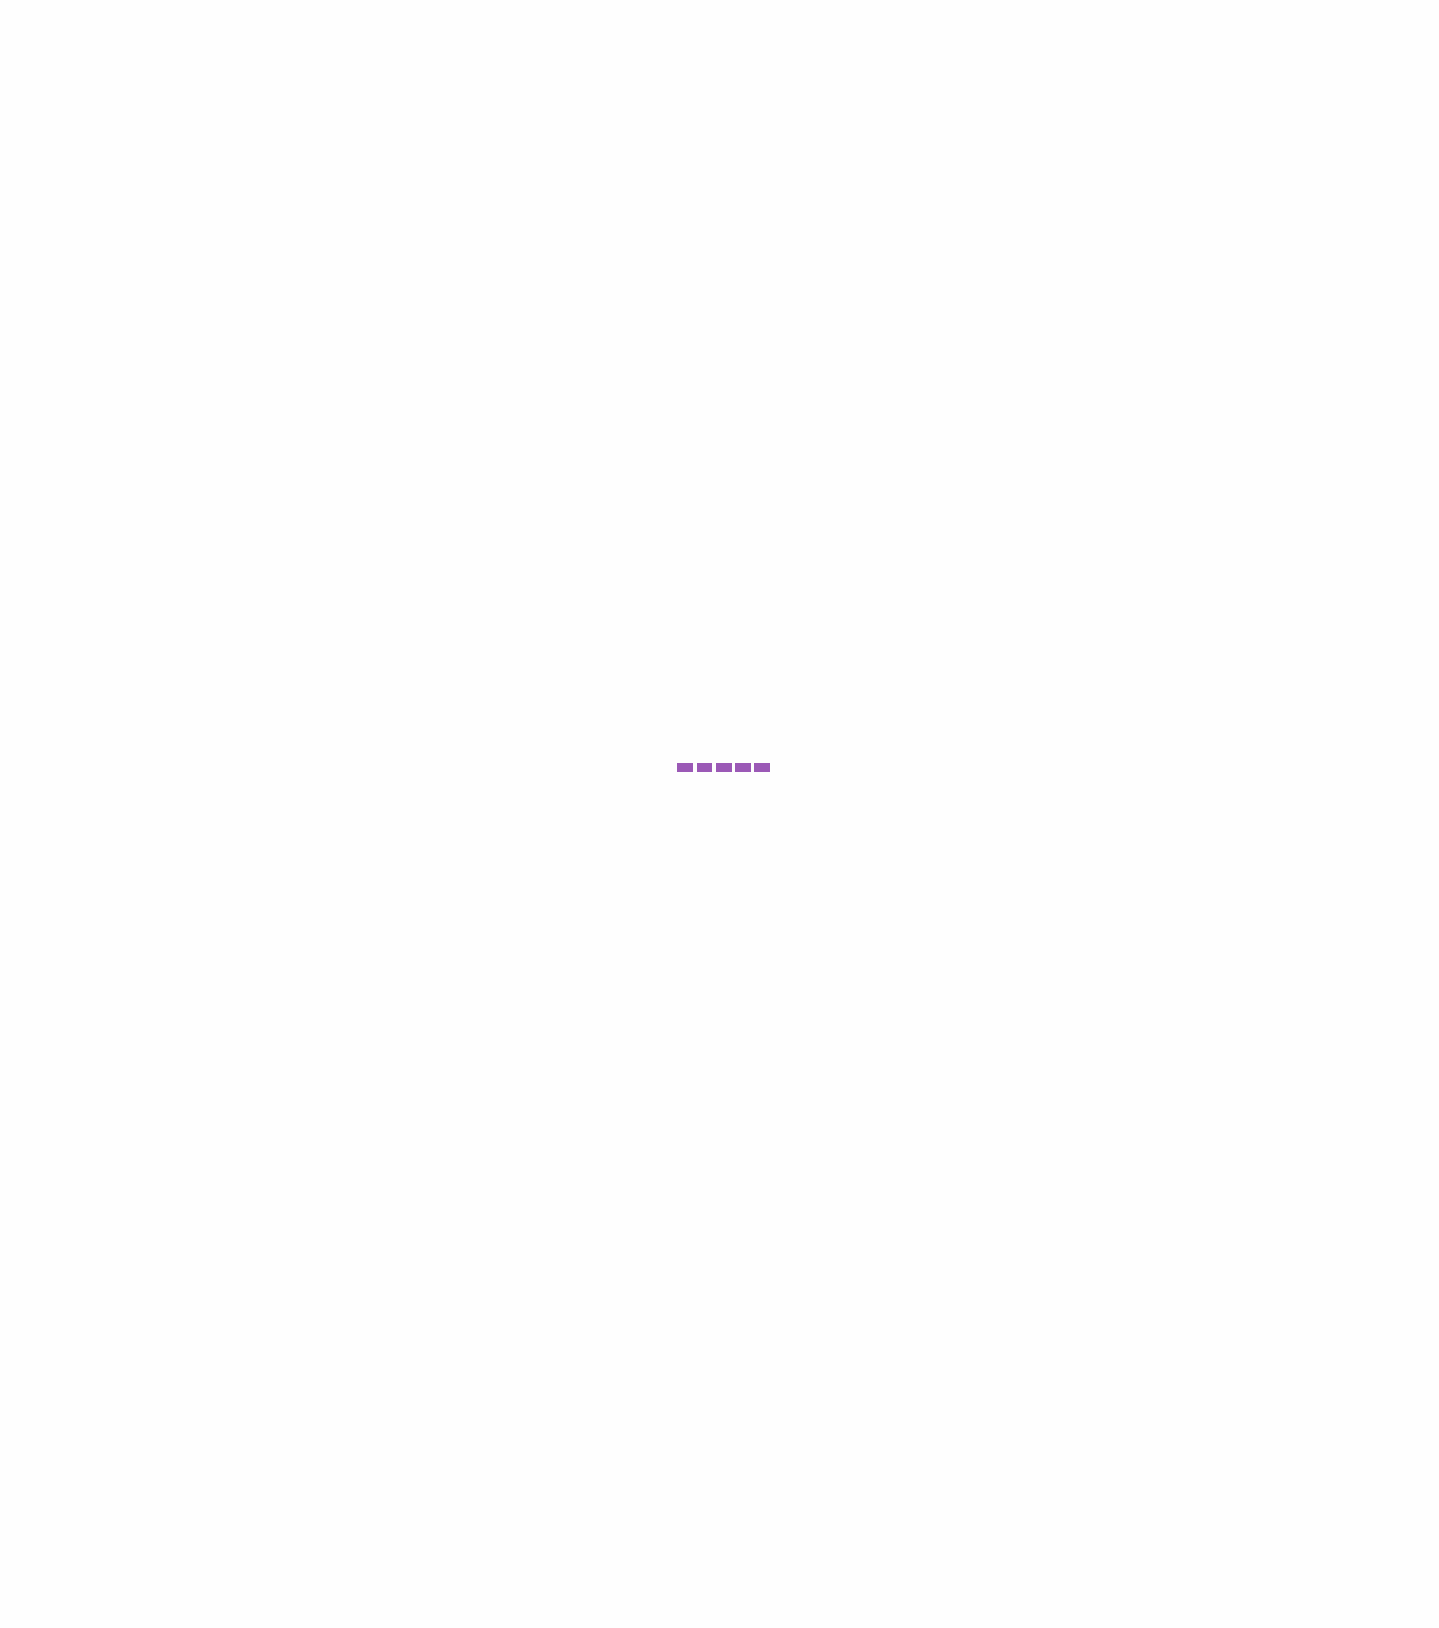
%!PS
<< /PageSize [1439 1628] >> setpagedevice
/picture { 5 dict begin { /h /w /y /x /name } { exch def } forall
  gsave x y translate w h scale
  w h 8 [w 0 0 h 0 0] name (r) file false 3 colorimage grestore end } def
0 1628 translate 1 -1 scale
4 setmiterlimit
0.996 setgray
0 0 1439 1628 rectfill
(img1.rgb) 645 10 151 68 picture
(img2.rgb) 117 254 21 17 picture
(img3.rgb) 122 357 19 22 picture
(img4.rgb) 623 357 21 22 picture
(img5.rgb) 119 611 236 196 picture
(img6.rgb) 1085 611 238 196 picture
0.608 0.349 0.714 setrgbcolor
677 763 16 9 rectfill
697 763 15 9 rectfill
716 763 16 9 rectfill
735 763 16 9 rectfill
754 763 16 9 rectfill
showpage
